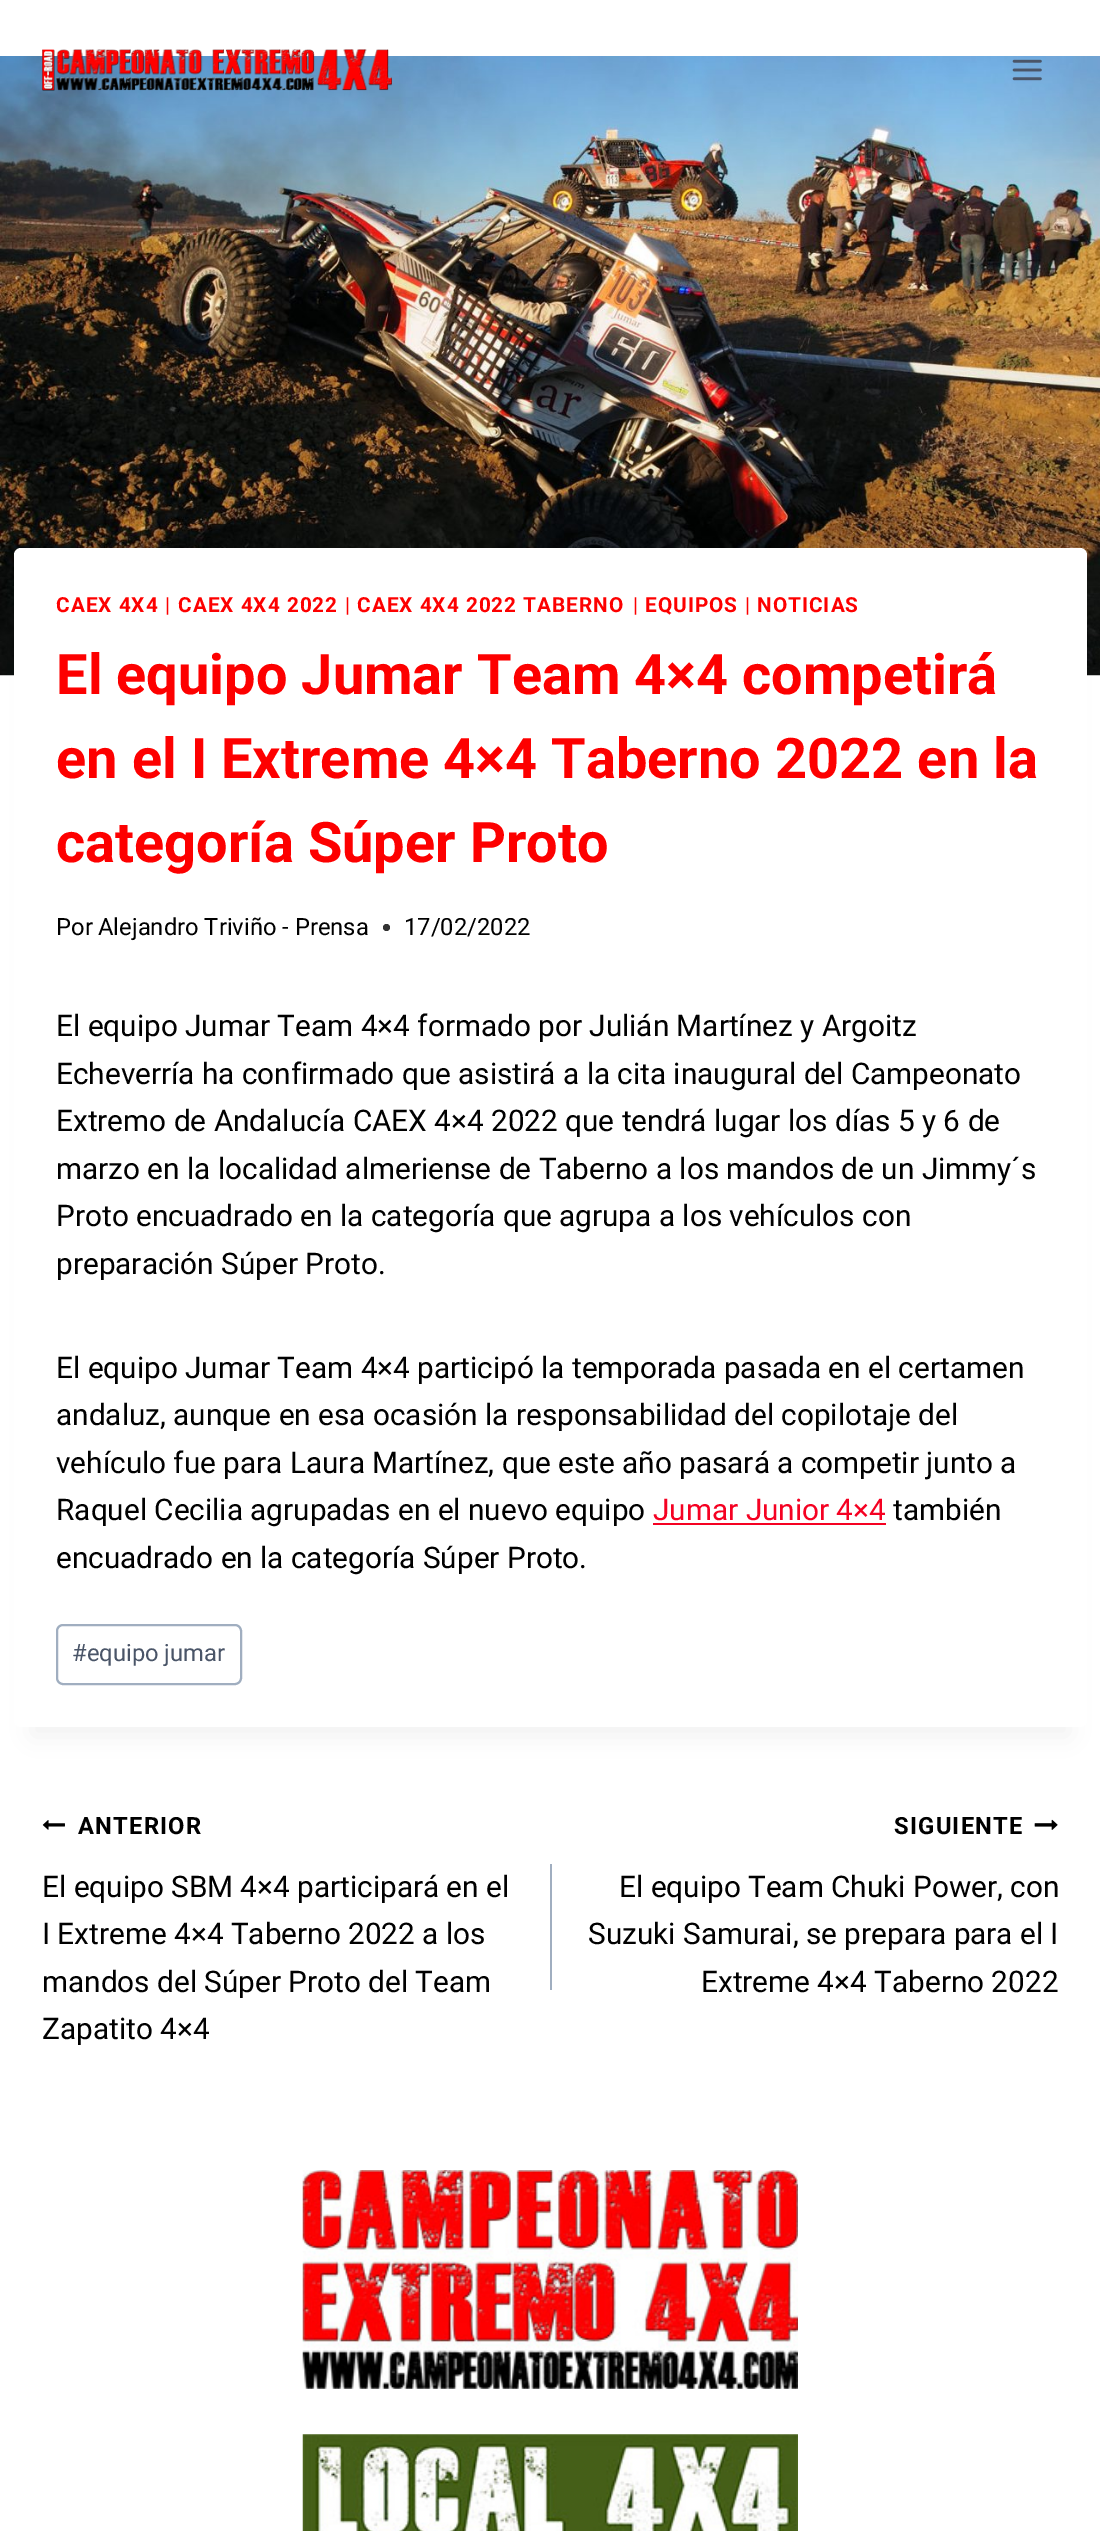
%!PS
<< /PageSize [1100 2531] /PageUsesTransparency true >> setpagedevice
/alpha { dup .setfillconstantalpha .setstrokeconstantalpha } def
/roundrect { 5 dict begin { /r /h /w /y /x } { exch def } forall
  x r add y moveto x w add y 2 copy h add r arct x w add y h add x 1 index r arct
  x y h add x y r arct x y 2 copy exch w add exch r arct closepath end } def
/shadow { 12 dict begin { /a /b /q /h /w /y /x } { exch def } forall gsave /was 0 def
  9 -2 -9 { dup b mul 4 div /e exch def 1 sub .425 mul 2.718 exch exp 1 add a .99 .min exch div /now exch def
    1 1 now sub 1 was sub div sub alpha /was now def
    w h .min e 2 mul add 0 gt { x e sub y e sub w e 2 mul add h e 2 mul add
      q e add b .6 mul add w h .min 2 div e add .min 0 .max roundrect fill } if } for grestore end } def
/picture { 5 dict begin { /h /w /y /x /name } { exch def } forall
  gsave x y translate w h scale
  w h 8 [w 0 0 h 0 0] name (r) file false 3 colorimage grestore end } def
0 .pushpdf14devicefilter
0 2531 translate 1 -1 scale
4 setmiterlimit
1 setgray
0 0 1100 2531 rectfill
(img3.rgb) 0 56 1100 620 picture
(img1.rgb) 42 49 350 42 picture
(img2.rgb) 1012 59 30 22 picture
0 setgray
32 592 1037 1144 0 13 0.05 shadow
1 setgray
14 548 1073 1179 7 roundrect fill
/Roboto-Bold [20.75 0 0 -20.75 0 0] selectfont
0.992 0 0 setrgbcolor
56 612 moveto 1 0 (CAEX 4X4) ashow
/Roboto-Regular [20.75 0 0 -20.75 0 0] selectfont
165 612 moveto 1 0 (|) ashow
/Roboto-Bold [20.75 0 0 -20.75 0 0] selectfont
178 612 moveto 1 0 (CAEX 4X4 2022) ashow
/Roboto-Regular [20.75 0 0 -20.75 0 0] selectfont
345 612 moveto 1 0 (|) ashow
/Roboto-Bold [20.75 0 0 -20.75 0 0] selectfont
357 612 moveto 1 0 (CAEX 4X4 2022 TABERNO) ashow
/Roboto-Regular [20.75 0 0 -20.75 0 0] selectfont
633 612 moveto 1 0 (|) ashow
/Roboto-Bold [20.75 0 0 -20.75 0 0] selectfont
645 612 moveto 1 0 (EQUIPOS) ashow
/Roboto-Regular [20.75 0 0 -20.75 0 0] selectfont
745 612 moveto 1 0 (|) ashow
/Roboto-Bold [20.75 0 0 -20.75 0 0] selectfont
757 612 moveto 1 0 (NOTICIAS) ashow
/Roboto-Bold [56 0 0 -56 0 0] selectfont
56 694 moveto (El equipo Jumar Team 4×4 competirá) show
56 778 moveto (en el I Extreme 4×4 Taberno 2022 en la) show
56 862 moveto (categoría Súper Proto) show
/Roboto-Regular [23.75 0 0 -23.75 0 0] selectfont
0 setgray
56 935 moveto (Por) show
98 935 moveto (Alejandro Triviño - Prensa) show
0.2 setgray
newpath 386.5 927.5 3.5 0 360 arc closepath fill
0 setgray
404 935 moveto (17/02/2022) show
/Roboto-Regular [29.75 0 0 -29.75 0 0] selectfont
56 1036 moveto (El equipo Jumar Team 4×4 formado por Julián Martínez y Argoitz) show
56 1084 moveto (Echeverría ha confirmado que asistirá a la cita inaugural del Campeonato) show
56 1131 moveto (Extremo de Andalucía CAEX 4×4 2022 que tendrá lugar los días 5 y 6 de) show
56 1179 moveto (marzo en la localidad almeriense de Taberno a los mandos de un Jimmy´s) show
56 1226 moveto (Proto encuadrado en la categoría que agrupa a los vehículos con) show
56 1274 moveto (preparación Súper Proto.) show
56 1378 moveto (El equipo Jumar Team 4×4 participó la temporada pasada en el certamen) show
56 1425 moveto (andaluz, aunque en esa ocasión la responsabilidad del copilotaje del) show
56 1473 moveto (vehículo fue para Laura Martínez, que este año pasará a competir junto a) show
56 1520 moveto (Raquel Cecilia agrupadas en el nuevo equipo) show
0.961 0.004 0.133 setrgbcolor
653 1520 moveto (Jumar Junior 4×4) show
653 1523 233 2 rectfill
0 setgray
893 1520 moveto (también) show
56 1568 moveto (encuadrado en la categoría Súper Proto.) show
0.627 0.682 0.753 setrgbcolor
2 setlinewidth
57 1625 184 59 6 roundrect stroke
/Roboto-Regular [23.75 0 0 -23.75 0 0] selectfont
0.29 0.333 0.408 setrgbcolor
72 1661 moveto (#equipo jumar) show
(img4.rgb) 42 1820 23 10 picture
/Roboto-Bold [23.75 0 0 -23.75 0 0] selectfont
0 setgray
78 1834 moveto 1.25 0 (ANTERIOR) ashow
/Roboto-Regular [29.75 0 0 -29.75 0 0] selectfont
42 1897 moveto (El equipo SBM 4×4 participará en el) show
42 1944 moveto (I Extreme 4×4 Taberno 2022 a los) show
42 1992 moveto (mandos del Súper Proto del Team) show
42 2039 moveto (Zapatito 4×4) show
0.627 0.682 0.753 setrgbcolor
550 1864 2 126 rectfill
/Roboto-Bold [23.75 0 0 -23.75 0 0] selectfont
0 setgray
894 1834 moveto 1.25 0 (SIGUIENTE) ashow
(img5.rgb) 1034 1819 24 11 picture
/Roboto-Regular [29.75 0 0 -29.75 0 0] selectfont
619 1897 moveto (El equipo Team Chuki Power, con) show
588 1944 moveto (Suzuki Samurai, se prepara para el I) show
701 1992 moveto (Extreme 4×4 Taberno 2022) show
(img6.rgb) 302 2170 496 219 picture
(img7.rgb) 302 2434 496 97 picture
.poppdf14devicefilter showpage
